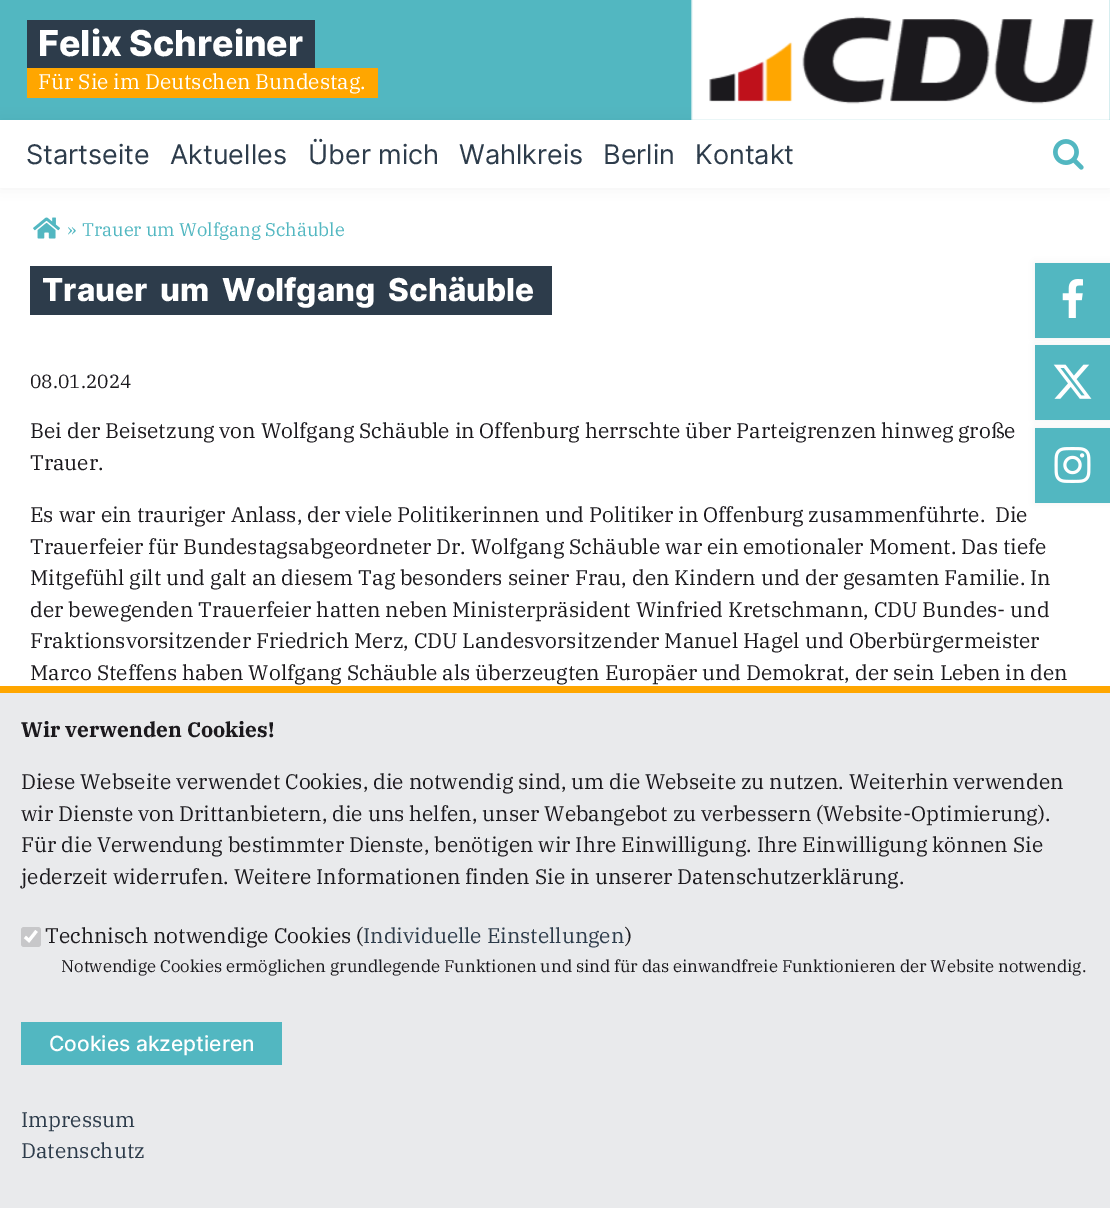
%!PS
<< /PageSize [1110 1208] /PageUsesTransparency true >> setpagedevice
/alpha { dup .setfillconstantalpha .setstrokeconstantalpha } def
/roundrect { 5 dict begin { /r /h /w /y /x } { exch def } forall
  x r add y moveto x w add y 2 copy h add r arct x w add y h add x 1 index r arct
  x y h add x y r arct x y 2 copy exch w add exch r arct closepath end } def
/shadow { 12 dict begin { /a /b /q /h /w /y /x } { exch def } forall gsave /was 0 def
  9 -2 -9 { dup b mul 4 div /e exch def 1 sub .425 mul 2.718 exch exp 1 add a .99 .min exch div /now exch def
    1 1 now sub 1 was sub div sub alpha /was now def
    w h .min e 2 mul add 0 gt { x e sub y e sub w e 2 mul add h e 2 mul add
      q e add b .6 mul add w h .min 2 div e add .min 0 .max roundrect fill } if } for grestore end } def
/picture { 5 dict begin { /h /w /y /x /name } { exch def } forall
  gsave x y translate w h scale
  w h 8 [w 0 0 h 0 0] name (r) file false 3 colorimage grestore end } def
0 .pushpdf14devicefilter
0 1208 translate 1 -1 scale
4 setmiterlimit
1 setgray
0 0 1110 1208 rectfill
0.322 0.718 0.757 setrgbcolor
0 0 1110 120 rectfill
0.176 0.235 0.294 setrgbcolor
27 20 288 48 rectfill
/Inter-ExtraBold [35.75 0 0 -35.75 0 0] selectfont
1 setgray
38 56 moveto (Felix Schreiner) show
0 setgray
0 120 1110 68 0 7.5 0.05 shadow
1 0.651 0 setrgbcolor
27 68 351 30 rectfill
/IBMPlexSerif-Regular [21 0 0 -21 0 0] selectfont
1 setgray
38 89 moveto (Für Sie im Deutschen Bundestag.) show
(img1.rgb) 691 0 419 120 picture
0 120 1110 68 rectfill
/Inter-Regular [27 0 0 -27 0 0] selectfont
0.176 0.235 0.294 setrgbcolor
26 164 moveto (Startseite) show
170 164 moveto (Aktuelles) show
308 164 moveto (Über mich) show
459 164 moveto (Wahlkreis) show
603 164 moveto (Berlin) show
695 164 moveto (Kontakt) show
(img2.rgb) 1053 139 31 31 picture
(img3.rgb) 33 217 27 22 picture
/IBMPlexSerif-Regular [18.4 0 0 -18.4 0 0] selectfont
0.322 0.718 0.757 setrgbcolor
67 236 moveto (») show
82 236 moveto (Trauer um Wolfgang Schäuble) show
0.176 0.235 0.294 setrgbcolor
30 266 359 49 rectfill
/Inter-ExtraBold [31.5 0 0 -31.5 0 0] selectfont
1 setgray
42 301 moveto (Trauer) show
160 301 moveto (um) show
222 301 moveto (Wolfgang) show
0.176 0.235 0.294 setrgbcolor
389 266 163 49 rectfill
1 setgray
388 301 moveto (Schäuble) show
/IBMPlexSerif-Regular [19 0 0 -19 0 0] selectfont
0.106 0.098 0.114 setrgbcolor
30 388 moveto (08.01.2024) show
/IBMPlexSerif-Regular [21 0 0 -21 0 0] selectfont
30 438 moveto (Bei der Beisetzung von Wolfgang Schäuble in Offenburg herrschte über Parteigrenzen hinweg große) show
30 470 moveto (Trauer.) show
30 522 moveto (Es war ein trauriger Anlass, der viele Politikerinnen und Politiker in Offenburg zusammenführte.  Die) show
30 554 moveto (Trauerfeier für Bundestagsabgeordneter Dr. Wolfgang Schäuble war ein emotionaler Moment. Das tiefe) show
30 585 moveto (Mitgefühl gilt und galt an diesem Tag besonders seiner Frau, den Kindern und der gesamten Familie. In) show
30 617 moveto (der bewegenden Trauerfeier hatten neben Ministerpräsident Winfried Kretschmann, CDU Bundes- und) show
30 648 moveto (Fraktionsvorsitzender Friedrich Merz, CDU Landesvorsitzender Manuel Hagel und Oberbürgermeister) show
30 680 moveto (Marco Steffens haben Wolfgang Schäuble als überzeugten Europäer und Demokrat, der sein Leben in den) show
0 setgray
1035 263 75 75 0 4 0.05 shadow
0.322 0.718 0.757 setrgbcolor
1035 263 75 75 rectfill
(img4.rgb) 1062 279 21 39 picture
0 setgray
1035 345 75 75 0 4 0.05 shadow
0.322 0.718 0.757 setrgbcolor
1035 345 75 75 rectfill
(img5.rgb) 1053 364 39 35 picture
0 setgray
1035 428 75 75 0 4 0.05 shadow
0.322 0.718 0.757 setrgbcolor
1035 428 75 75 rectfill
(img6.rgb) 1054 447 37 36 picture
0.914 0.918 0.925 setrgbcolor
0 693 1110 515 rectfill
1 0.651 0 setrgbcolor
0 686 1110 7 rectfill
/IBMPlexSerif-Bold [21 0 0 -21 0 0] selectfont
0.106 0.098 0.114 setrgbcolor
21 737 moveto (Wir verwenden Cookies!) show
/IBMPlexSerif-Regular [21 0 0 -21 0 0] selectfont
21 789 moveto (Diese Webseite verwendet Cookies, die notwendig sind, um die Webseite zu nutzen. Weiterhin verwenden) show
21 821 moveto (wir Dienste von Drittanbietern, die uns helfen, unser Webangebot zu verbessern \(Website-Optimierung\).) show
21 852 moveto (Für die Verwendung bestimmter Dienste, benötigen wir Ihre Einwilligung. Ihre Einwilligung können Sie) show
21 884 moveto (jederzeit widerrufen. Weitere Informationen finden Sie in unserer Datenschutzerklärung.) show
0.78 0.78 0.788 setrgbcolor
21 927 20 20 3 roundrect fill
1 setgray
3.1 setlinewidth
newpath 25 937 moveto 29 940.5 lineto 36.5 931 lineto stroke
0.106 0.098 0.114 setrgbcolor
45 943 moveto (Technisch notwendige Cookies \() show
0.176 0.235 0.294 setrgbcolor
363 943 moveto (Individuelle Einstellungen) show
0.106 0.098 0.114 setrgbcolor
625 943 moveto (\)) show
/IBMPlexSerif-Regular [16.8 0 0 -16.8 0 0] selectfont
61 972 moveto (Notwendige Cookies ermöglichen grundlegende Funktionen und sind für das einwandfreie Funktionieren der Website notwendig.) show
0.322 0.718 0.757 setrgbcolor
21 1022 261 43 rectfill
/Inter-Medium [21 0 0 -21 0 0] selectfont
1 setgray
49 1051 moveto (Cookies akzeptieren) show
/IBMPlexSerif-Regular [21 0 0 -21 0 0] selectfont
0.176 0.235 0.294 setrgbcolor
21 1127 moveto (Impressum) show
21 1158 moveto (Datenschutz) show
.poppdf14devicefilter showpage
